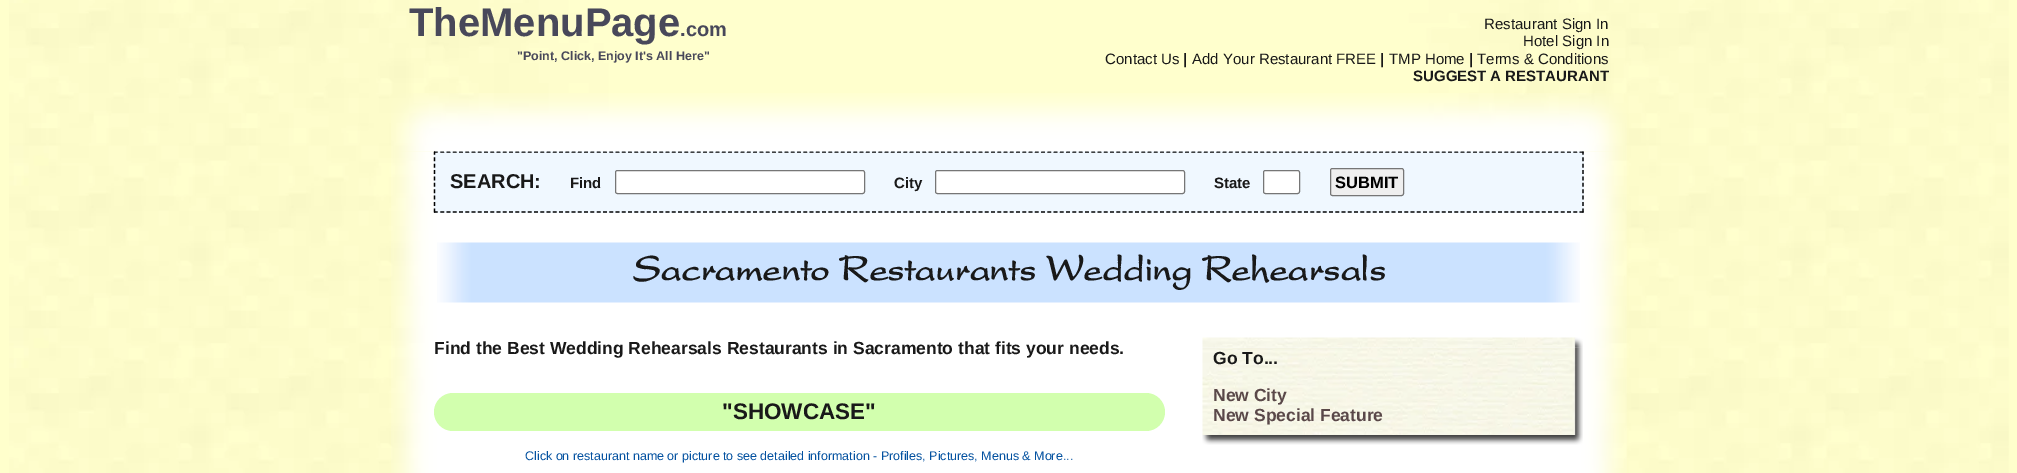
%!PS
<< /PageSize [2017 473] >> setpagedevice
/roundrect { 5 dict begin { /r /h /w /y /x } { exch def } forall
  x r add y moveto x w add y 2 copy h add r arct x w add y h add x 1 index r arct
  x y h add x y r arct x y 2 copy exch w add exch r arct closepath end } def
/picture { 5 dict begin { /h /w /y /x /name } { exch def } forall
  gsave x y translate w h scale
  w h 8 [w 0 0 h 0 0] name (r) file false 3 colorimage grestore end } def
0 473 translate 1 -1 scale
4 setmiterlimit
1 1 0.8 setrgbcolor
0 0 2017 473 rectfill
(img1.rgb) 9 0 2000 473 picture
/LiberationSans-Bold [40 0 0 -40 0 0] selectfont
0.282 0.282 0.353 setrgbcolor
409 36 moveto (TheMenuPage) show
/LiberationSans-Bold [20 0 0 -20 0 0] selectfont
680 36 moveto (.com) show
/LiberationSans-Regular [15 0 0 -15 0 0] selectfont
0.098 setgray
1484 29 moveto (Restaurant Sign In) show
1523 46 moveto (Hotel Sign In) show
1105 64 moveto (Contact Us) show
/LiberationSans-Bold [15 0 0 -15 0 0] selectfont
1183 64 moveto (|) show
/LiberationSans-Regular [15 0 0 -15 0 0] selectfont
1192 64 moveto (Add Your Restaurant FREE) show
/LiberationSans-Bold [15 0 0 -15 0 0] selectfont
1380 64 moveto (|) show
/LiberationSans-Regular [15 0 0 -15 0 0] selectfont
1389 64 moveto (TMP Home) show
/LiberationSans-Bold [15 0 0 -15 0 0] selectfont
1469 64 moveto (|) show
/LiberationSans-Regular [15 0 0 -15 0 0] selectfont
1477 64 moveto (Terms & Conditions) show
/LiberationSans-Bold [15 0 0 -15 0 0] selectfont
1413 81 moveto (SUGGEST A RESTAURANT) show
/LiberationSans-Bold [12.5 0 0 -12.5 0 0] selectfont
0.282 0.282 0.353 setrgbcolor
517 60 moveto ("Point, Click, Enjoy It's All Here") show
(img3.rgb) 391 151 1236 322 picture
0.941 0.973 1 setrgbcolor
434 151 1150 62 rectfill
0 setgray
1.2 setlinewidth
[3.75 2.51] 0 setdash
newpath 434 152 moveto 1584 152 lineto stroke
[3.75 2.64] 0 setdash
newpath 1583 151 moveto 1583 212.5 lineto stroke
[3.75 2.51] 0 setdash
newpath 434 212 moveto 1584 212 lineto stroke
[3.75 2.64] 0 setdash
newpath 434.5 151 moveto 434.5 212.5 lineto stroke
(img2.rgb) 391 93 1236 59 picture
/LiberationSans-Bold [20 0 0 -20 0 0] selectfont
0.098 setgray
450 188 moveto (SEARCH:) show
/LiberationSans-Bold [15 0 0 -15 0 0] selectfont
570 188 moveto (Find) show
1 setgray
615.5 170.5 249 23 2 roundrect gsave fill grestore
0.463 setgray
1 setlinewidth
[] 0 setdash
stroke
0.098 setgray
894 188 moveto (City) show
1 setgray
935.5 170.5 249 23 2 roundrect gsave fill grestore
0.463 setgray
stroke
0.098 setgray
1214 188 moveto (State) show
1 setgray
1263.5 170.5 36 23 2 roundrect gsave fill grestore
0.463 setgray
stroke
0.937 setgray
1330.5 168.5 73 27 2 roundrect gsave fill grestore
0.463 setgray
stroke
/LiberationSans-Bold [16.5 0 0 -16.5 0 0] selectfont
0 setgray
1335 188 moveto (SUBMIT) show
(img4.rgb) 437 242 1143 61 picture
/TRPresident-Bold [37.5 0 0 -37.5 0 0] selectfont
0.098 setgray
633 280 moveto (Sacramento Restaurants Wedding Rehearsals) show
/LiberationSans-Bold [17.5 0 0 -17.5 0 0] selectfont
434 354 moveto (Find the Best Wedding Rehearsals Restaurants in Sacramento that fits your needs.) show
0.824 1 0.682 setrgbcolor
434 393 731 38 19 roundrect fill
/LiberationSans-Bold [22.5 0 0 -22.5 0 0] selectfont
0.098 setgray
722 419 moveto ("SHOWCASE") show
/LiberationSans-Regular [12.5 0 0 -12.5 0 0] selectfont
0.012 0.318 0.627 setrgbcolor
525 460 moveto (Click on restaurant name or picture to see detailed information - Profiles, Pictures, Menus & More...) show
(img6.rgb) 1202 347 381 88 picture
(img5.rgb) 1202 337 381 11 picture
/LiberationSans-Bold [17.5 0 0 -17.5 0 0] selectfont
0.098 setgray
1213 364 moveto (Go To...) show
0.353 0.282 0.286 setrgbcolor
1213 401 moveto (New City) show
1213 421 moveto (New Special Feature) show
(img7.rgb) 1202 435 381 10 picture
showpage
